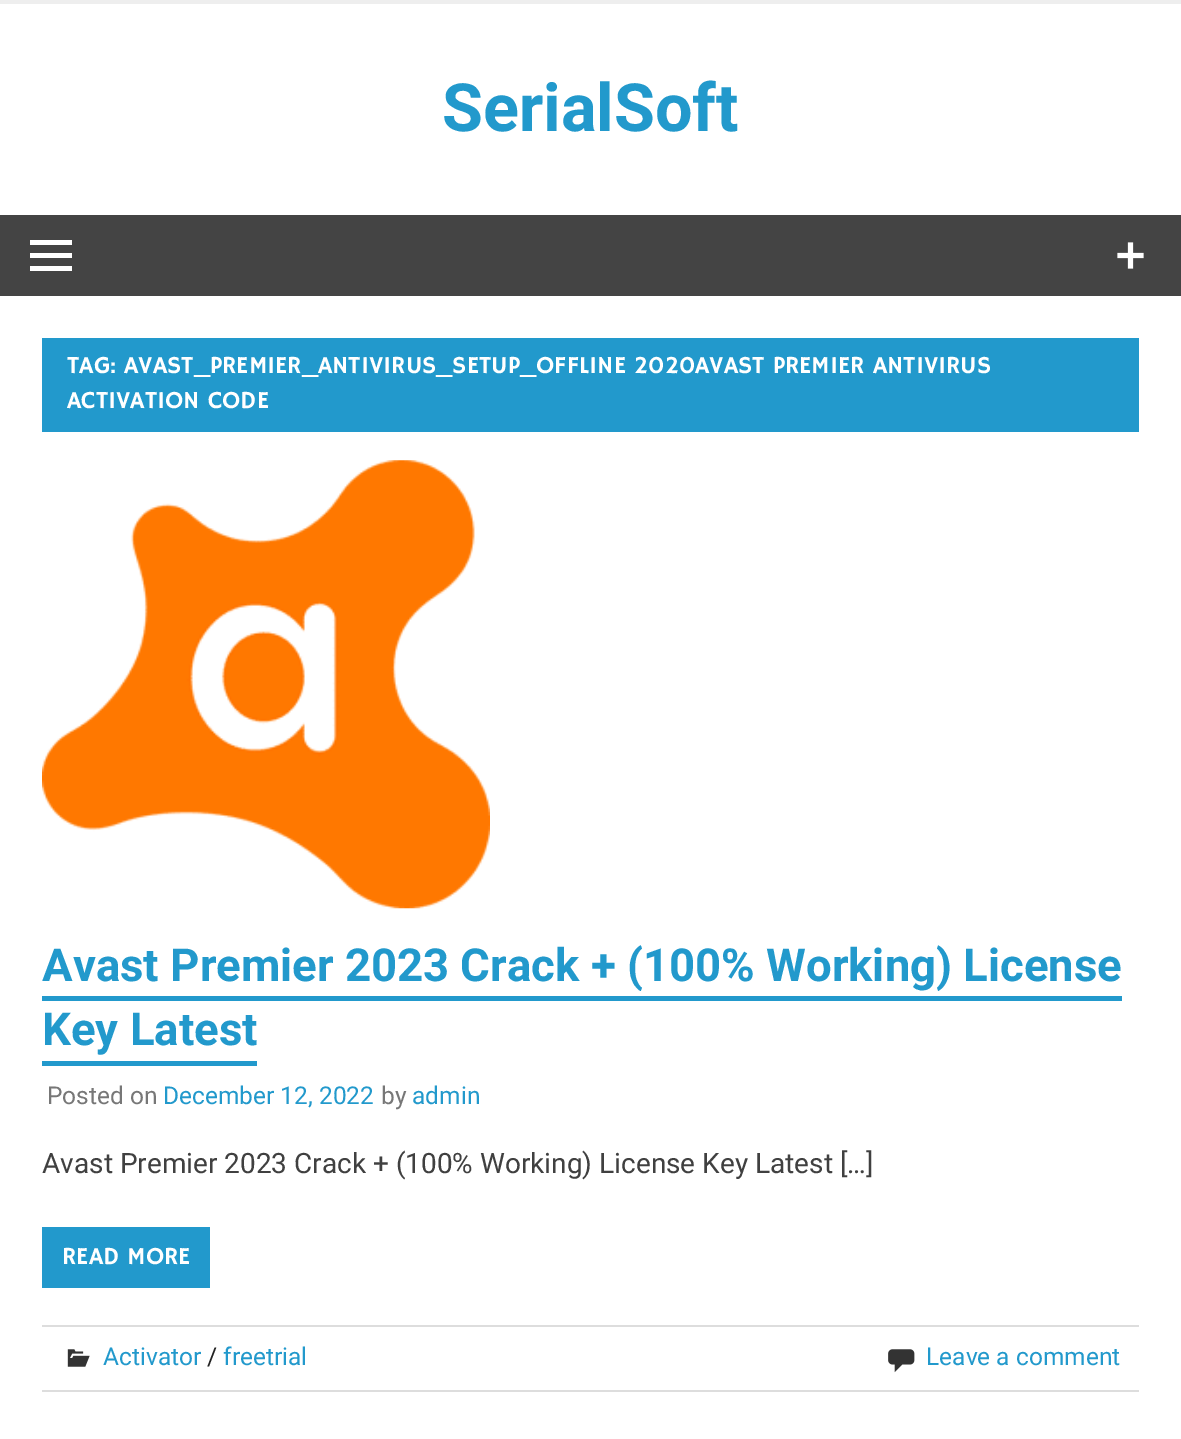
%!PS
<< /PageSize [1181 1439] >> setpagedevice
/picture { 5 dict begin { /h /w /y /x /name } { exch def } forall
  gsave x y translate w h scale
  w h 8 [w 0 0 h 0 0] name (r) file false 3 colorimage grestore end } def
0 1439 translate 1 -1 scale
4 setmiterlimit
1 setgray
0 0 1181 1439 rectfill
0.933 setgray
0 0 1181 4 rectfill
/Roboto-Bold [66.5 0 0 -66.5 0 0] selectfont
0.133 0.6 0.8 setrgbcolor
442 131 moveto (SerialSoft) show
0.267 setgray
0 215 1181 81 rectfill
(img1.rgb) 1117 242 27 27 picture
1 setgray
newpath 30 271 moveto 30 266 lineto 72 266 lineto 72 271 lineto closepath 30 240 moveto 72 240 lineto 72 245 lineto 30 245 lineto closepath 30 258 moveto 30 253 lineto 72 253 lineto 72 258 lineto closepath fill
0.133 0.6 0.8 setrgbcolor
42 338 1097 94 rectfill
/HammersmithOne-Regular [24.5 0 0 -24.5 0 0] selectfont
1 setgray
67 373 moveto (TAG: AVAST_PREMIER_ANTIVIRUS_SETUP_OFFLINE 2020AVAST PREMIER ANTIVIRUS) show
67 408 moveto (ACTIVATION CODE) show
(img2.rgb) 42 460 448 449 picture
/Roboto-Bold [45.5 0 0 -45.5 0 0] selectfont
0.133 0.6 0.8 setrgbcolor
42 981 moveto (Avast Premier 2023 Crack + \(100% Working\) License) show
42 996 1080 5 rectfill
42 1045 moveto (Key Latest) show
42 1061 215 5 rectfill
/Roboto-Regular [24.5 0 0 -24.5 0 0] selectfont
0.467 setgray
47 1104 moveto (Posted on) show
0.133 0.6 0.8 setrgbcolor
163 1104 moveto (December 12, 2022) show
0.467 setgray
381 1104 moveto (by) show
0.133 0.6 0.8 setrgbcolor
412 1104 moveto (admin) show
/Roboto-Regular [28 0 0 -28 0 0] selectfont
0.251 setgray
42 1173 moveto (Avast Premier 2023 Crack + \(100% Working\) License Key Latest […]) show
0.133 0.6 0.8 setrgbcolor
42 1227 168 61 rectfill
/HammersmithOne-Regular [24.5 0 0 -24.5 0 0] selectfont
1 setgray
62 1264 moveto (READ MORE) show
0.867 setgray
42 1325 1097 2 rectfill
42 1390 1097 2 rectfill
(img3.rgb) 67 1349 23 18 picture
/Roboto-Regular [24.5 0 0 -24.5 0 0] selectfont
0.133 0.6 0.8 setrgbcolor
103 1365 moveto (Activator) show
0.133 setgray
207 1365 moveto (/) show
0.133 0.6 0.8 setrgbcolor
223 1365 moveto (freetrial) show
(img4.rgb) 888 1349 27 24 picture
926 1365 moveto (Leave a comment) show
showpage
